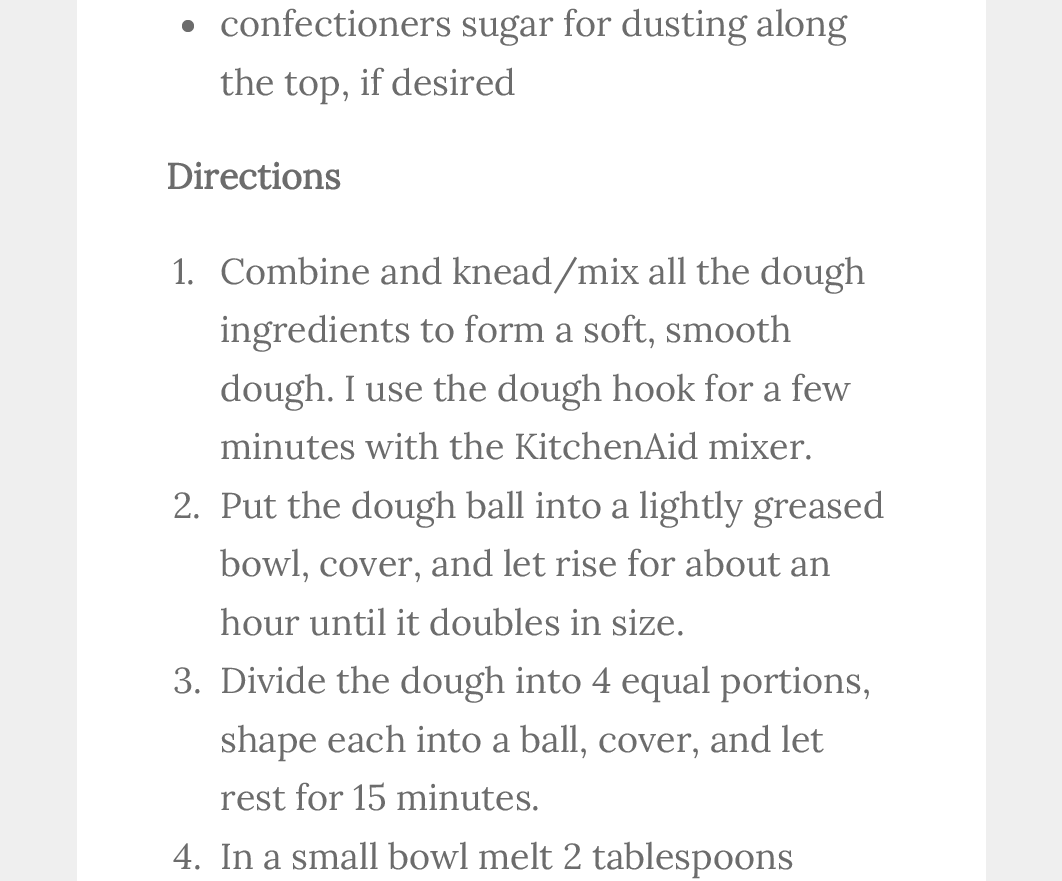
%!PS
<< /PageSize [1062 881] >> setpagedevice
0 881 translate 1 -1 scale
4 setmiterlimit
0.937 setgray
0 0 1062 881 rectfill
1 setgray
77 0 909 881 rectfill
0.424 setgray
newpath 188 26 6 0 360 arc closepath fill
/Lora-Regular [36 0 0 -36 0 0] selectfont
220 36 moveto (confectioners sugar for dusting along) show
220 95 moveto (the top, if desired) show
/Lora-Bold [36 0 0 -36 0 0] selectfont
166 189 moveto (Directions) show
/Lora-Regular [36 0 0 -36 0 0] selectfont
173 284 moveto (1.) show
220 284 moveto (Combine and knead/mix all the dough) show
220 342 moveto (ingredients to form a soft, smooth) show
220 401 moveto (dough. I use the dough hook for a few) show
220 459 moveto (minutes with the KitchenAid mixer.) show
173 518 moveto (2.) show
220 518 moveto (Put the dough ball into a lightly greased) show
220 576 moveto (bowl, cover, and let rise for about an) show
220 635 moveto (hour until it doubles in size.) show
173 693 moveto (3.) show
220 693 moveto (Divide the dough into 4 equal portions,) show
220 752 moveto (shape each into a ball, cover, and let) show
220 810 moveto (rest for 15 minutes.) show
173 869 moveto (4.) show
220 869 moveto (In a small bowl melt 2 tablespoons) show
showpage
